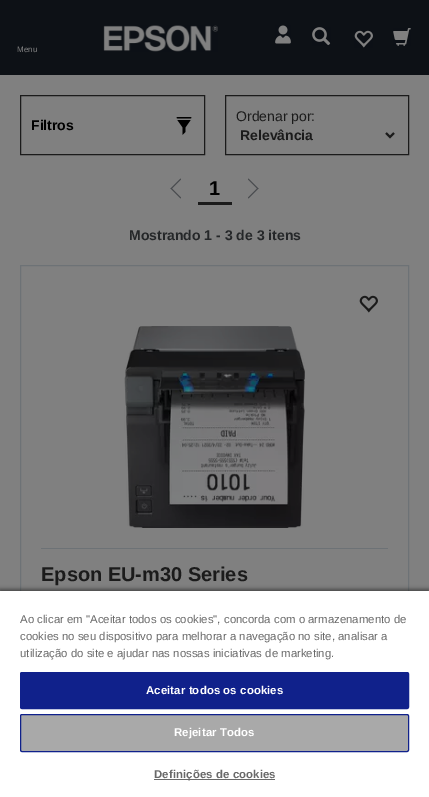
%!PS
<< /PageSize [429 797] /PageUsesTransparency true >> setpagedevice
/alpha { dup .setfillconstantalpha .setstrokeconstantalpha } def
/roundrect { 5 dict begin { /r /h /w /y /x } { exch def } forall
  x r add y moveto x w add y 2 copy h add r arct x w add y h add x 1 index r arct
  x y h add x y r arct x y 2 copy exch w add exch r arct closepath end } def
/shadow { 12 dict begin { /a /b /q /h /w /y /x } { exch def } forall gsave /was 0 def
  9 -2 -9 { dup b mul 4 div /e exch def 1 sub .425 mul 2.718 exch exp 1 add a .99 .min exch div /now exch def
    1 1 now sub 1 was sub div sub alpha /was now def
    w h .min e 2 mul add 0 gt { x e sub y e sub w e 2 mul add h e 2 mul add
      q e add b .6 mul add w h .min 2 div e add .min 0 .max roundrect fill } if } for grestore end } def
/picture { 5 dict begin { /h /w /y /x /name } { exch def } forall
  gsave x y translate w h scale
  w h 8 [w 0 0 h 0 0] name (r) file false 3 colorimage grestore end } def
0 .pushpdf14devicefilter
0 797 translate 1 -1 scale
4 setmiterlimit
0.502 setgray
0 0 429 797 rectfill
0.051 0.067 0.086 setrgbcolor
0 0 429 75 rectfill
(img1.rgb) 103 25 115 27 picture
(img2.rgb) 275 25 16 19 picture
(img3.rgb) 312 27 19 19 picture
(img4.rgb) 354 30 19 18 picture
(img5.rgb) 393 28 18 18 picture
/LiberationSans-Regular [8 0 0 -8 0 0] selectfont
0.502 setgray
17 52 moveto (Menu) show
0.106 setgray
20.5 95.5 184 59 rectstroke
/LiberationSans-Bold [14 0 0 -14 0 0] selectfont
0 setgray
31 130 moveto (Filtros) show
(img6.rgb) 176 117 16 18 picture
0.106 setgray
225.5 95.5 183 59 rectstroke
/LiberationSans-Regular [14 0 0 -14 0 0] selectfont
236 121 moveto (Ordenar por:) show
2 setlinewidth
newpath 386 133 moveto 390 137 lineto 394 133 lineto stroke
/LiberationSans-Bold [14 0 0 -14 0 0] selectfont
240 140 moveto (Relevância) show
0.282 0.29 0.306 setrgbcolor
newpath 180.5 198.5 moveto 170.5 188.5 lineto 171.5 188 lineto 181 197.5 lineto closepath fill
newpath 171.5 189 moveto 170.5 188.5 lineto 180.5 178.5 lineto 181 179.5 lineto closepath fill
0.106 setgray
198 202 34 3 rectfill
/LiberationSans-Bold [20 0 0 -20 0 0] selectfont
0 setgray
209 195 moveto (1) show
0.282 0.29 0.306 setrgbcolor
newpath 248.5 178.5 moveto 258.5 188.5 lineto 257.5 189 lineto 248 179.5 lineto closepath fill
newpath 257.5 188 moveto 258.5 188.5 lineto 248.5 198.5 lineto 248 197.5 lineto closepath fill
/LiberationSans-Bold [14 0 0 -14 0 0] selectfont
0.145 0.153 0.161 setrgbcolor
129 240 moveto (Mostrando 1 - 3 de 3 itens) show
0.427 0.447 0.463 setrgbcolor
1 setlinewidth
20.5 265.5 388 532 rectstroke
41 548 347 1 rectfill
(img7.rgb) 359 295 19 18 picture
(img8.rgb) 124 326 181 202 picture
/LiberationSans-Bold [20 0 0 -20 0 0] selectfont
0.106 setgray
41 581 moveto (Epson EU-m30 Series) show
0 setgray
0 589 429 208 0 2 0.35 shadow
0 591 429 206 0 2 0.2 shadow
1 setgray
0 591 429 206 rectfill
/LiberationSans-Regular [11.4 0 0 -11.4 0 0] selectfont
0.412 setgray
20 623 moveto (Ao clicar em "Aceitar todos os cookies", concorda com o armazenamento de) show
20 640 moveto (cookies no seu dispositivo para melhorar a navegação no site, analisar a) show
20 657 moveto (utilização do site e ajudar nas nossas iniciativas de marketing.) show
0.063 0.129 0.545 setrgbcolor
20.5 672.5 388 36 1.5 roundrect gsave fill grestore
stroke
/LiberationSans-Bold [11.4 0 0 -11.4 0 0] selectfont
1 setgray
146 694 moveto 0.1 0 (Aceitar todos os cookies) ashow
0.663 setgray
20.5 714.5 388 37 1.5 roundrect gsave fill grestore
0.063 0.129 0.545 setrgbcolor
stroke
1 setgray
174 736 moveto 0.1 0 (Rejeitar Todos) ashow
0.412 setgray
154 779 121 1 rectfill
154 778 moveto 0.1 0 (Definições de cookies) ashow
.poppdf14devicefilter showpage
